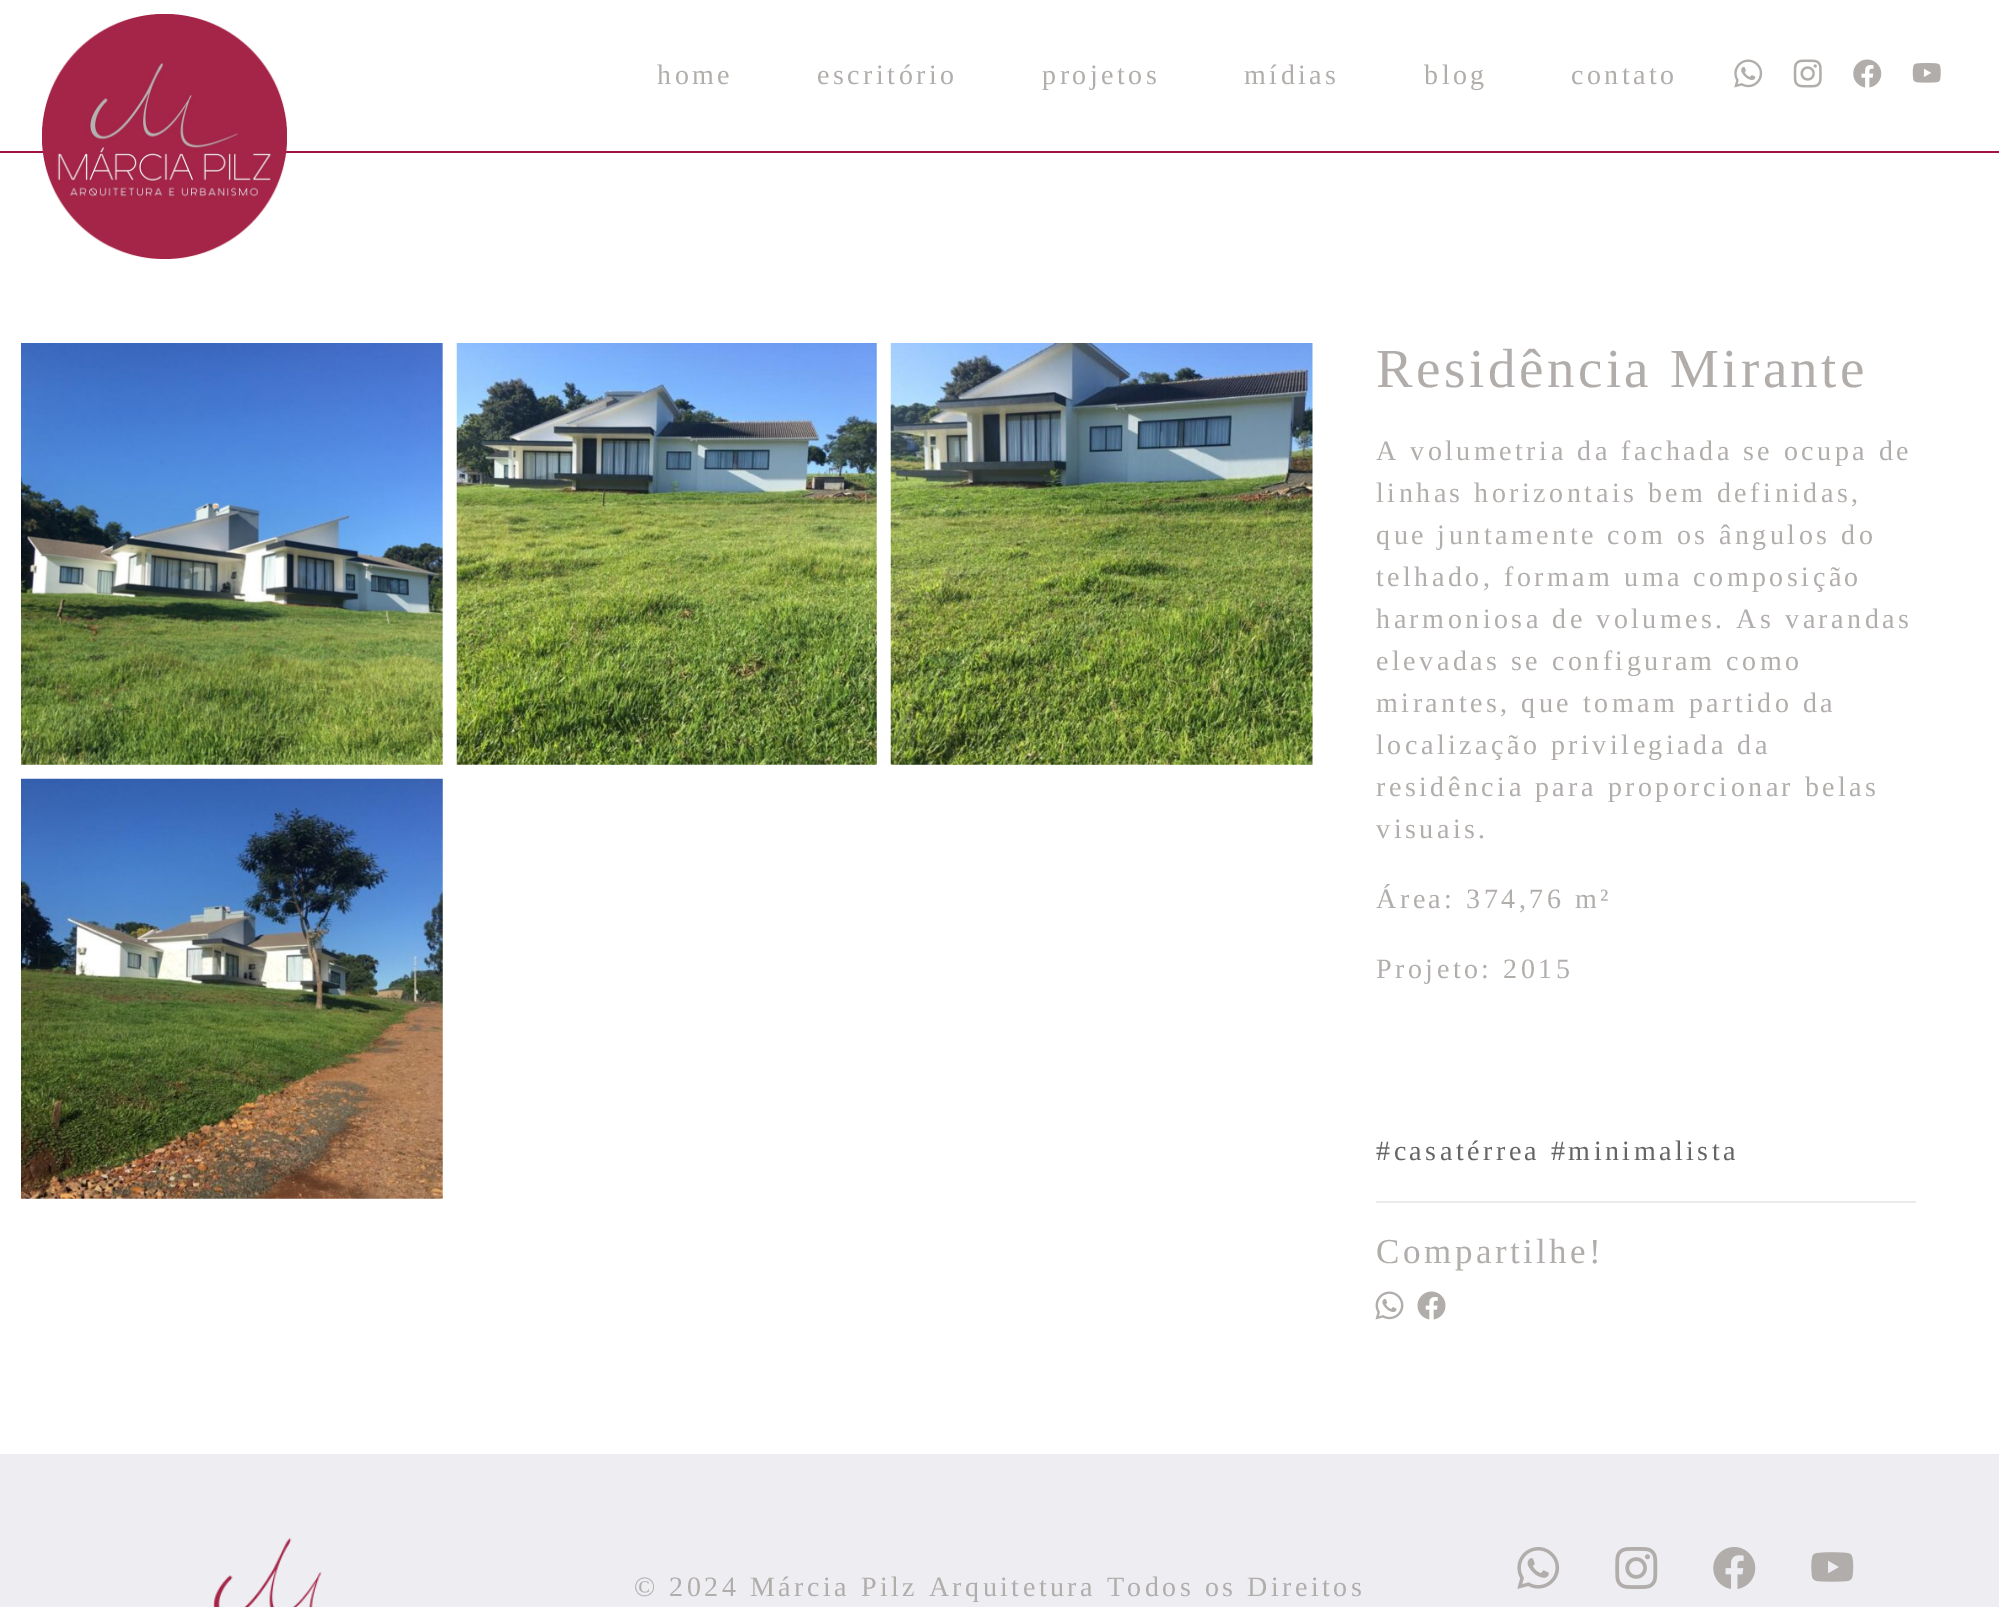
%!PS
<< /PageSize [1999 1607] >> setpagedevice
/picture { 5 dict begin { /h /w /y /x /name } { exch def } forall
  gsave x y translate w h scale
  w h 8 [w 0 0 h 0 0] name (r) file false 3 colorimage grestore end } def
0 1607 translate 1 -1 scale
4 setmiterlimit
1 setgray
0 0 1999 1607 rectfill
0.639 0.078 0.251 setrgbcolor
0 151 1999 2 rectfill
(img1.rgb) 42 14 245 245 picture
/LiberationSerif-Regular [28 0 0 -28 0 0] selectfont
0.694 0.678 0.671 setrgbcolor
657 84 moveto 3.5 0 (home) ashow
817 84 moveto 3.5 0 (escritório) ashow
1042 84 moveto 3.5 0 (projetos) ashow
1244 84 moveto 3.5 0 (mídias) ashow
1424 84 moveto 3.5 0 (blog) ashow
1571 84 moveto 3.5 0 (contato) ashow
(img2.rgb) 1734 59 29 29 picture
(img3.rgb) 1793 59 29 29 picture
(img4.rgb) 1853 59 29 29 picture
(img5.rgb) 1912 62 29 21 picture
(img6.rgb) 21 343 422 422 picture
(img7.rgb) 456 343 421 422 picture
(img8.rgb) 890 343 423 422 picture
(img9.rgb) 21 778 422 421 picture
/LiberationSerif-Regular [55 0 0 -55 0 0] selectfont
1376 387 moveto 3.5 0 (Residência Mirante) ashow
/LiberationSerif-Regular [28 0 0 -28 0 0] selectfont
1376 460 moveto 3.5 0 (A volumetria da fachada se ocupa de) ashow
1376 502 moveto 3.5 0 (linhas horizontais bem definidas,) ashow
1376 544 moveto 3.5 0 (que juntamente com os ângulos do) ashow
1376 586 moveto 3.5 0 (telhado, formam uma composição) ashow
1376 628 moveto 3.5 0 (harmoniosa de volumes. As varandas) ashow
1376 670 moveto 3.5 0 (elevadas se configuram como) ashow
1376 712 moveto 3.5 0 (mirantes, que tomam partido da) ashow
1376 754 moveto 3.5 0 (localização privilegiada da) ashow
1376 796 moveto 3.5 0 (residência para proporcionar belas) ashow
1376 838 moveto 3.5 0 (visuais.) ashow
1376 908 moveto 3.5 0 (Área: 374,76 m²) ashow
1376 978 moveto 3.5 0 (Projeto: 2015) ashow
0.4 0.392 0.392 setrgbcolor
1376 1160 moveto 3.5 0 (#casatérrea #minimalista) ashow
0.925 0.922 0.918 setrgbcolor
1376 1201 540 2 rectfill
/LiberationSerif-Regular [35 0 0 -35 0 0] selectfont
0.694 0.678 0.671 setrgbcolor
1376 1263 moveto 3.5 0 (Compartilhe!) ashow
(img10.rgb) 1375 1291 29 29 picture
(img11.rgb) 1417 1291 29 29 picture
0.929 0.929 0.949 setrgbcolor
0 1454 1999 153 rectfill
(img12.rgb) 213 1538 109 69 picture
/LiberationSerif-Regular [28 0 0 -28 0 0] selectfont
0.694 0.678 0.671 setrgbcolor
634 1596 moveto 3.5 0 (© 2024 Márcia Pilz Arquitetura Todos os Direitos) ashow
(img13.rgb) 1517 1547 43 42 picture
(img14.rgb) 1615 1547 43 42 picture
(img15.rgb) 1713 1547 43 42 picture
(img16.rgb) 1811 1552 43 30 picture
showpage
